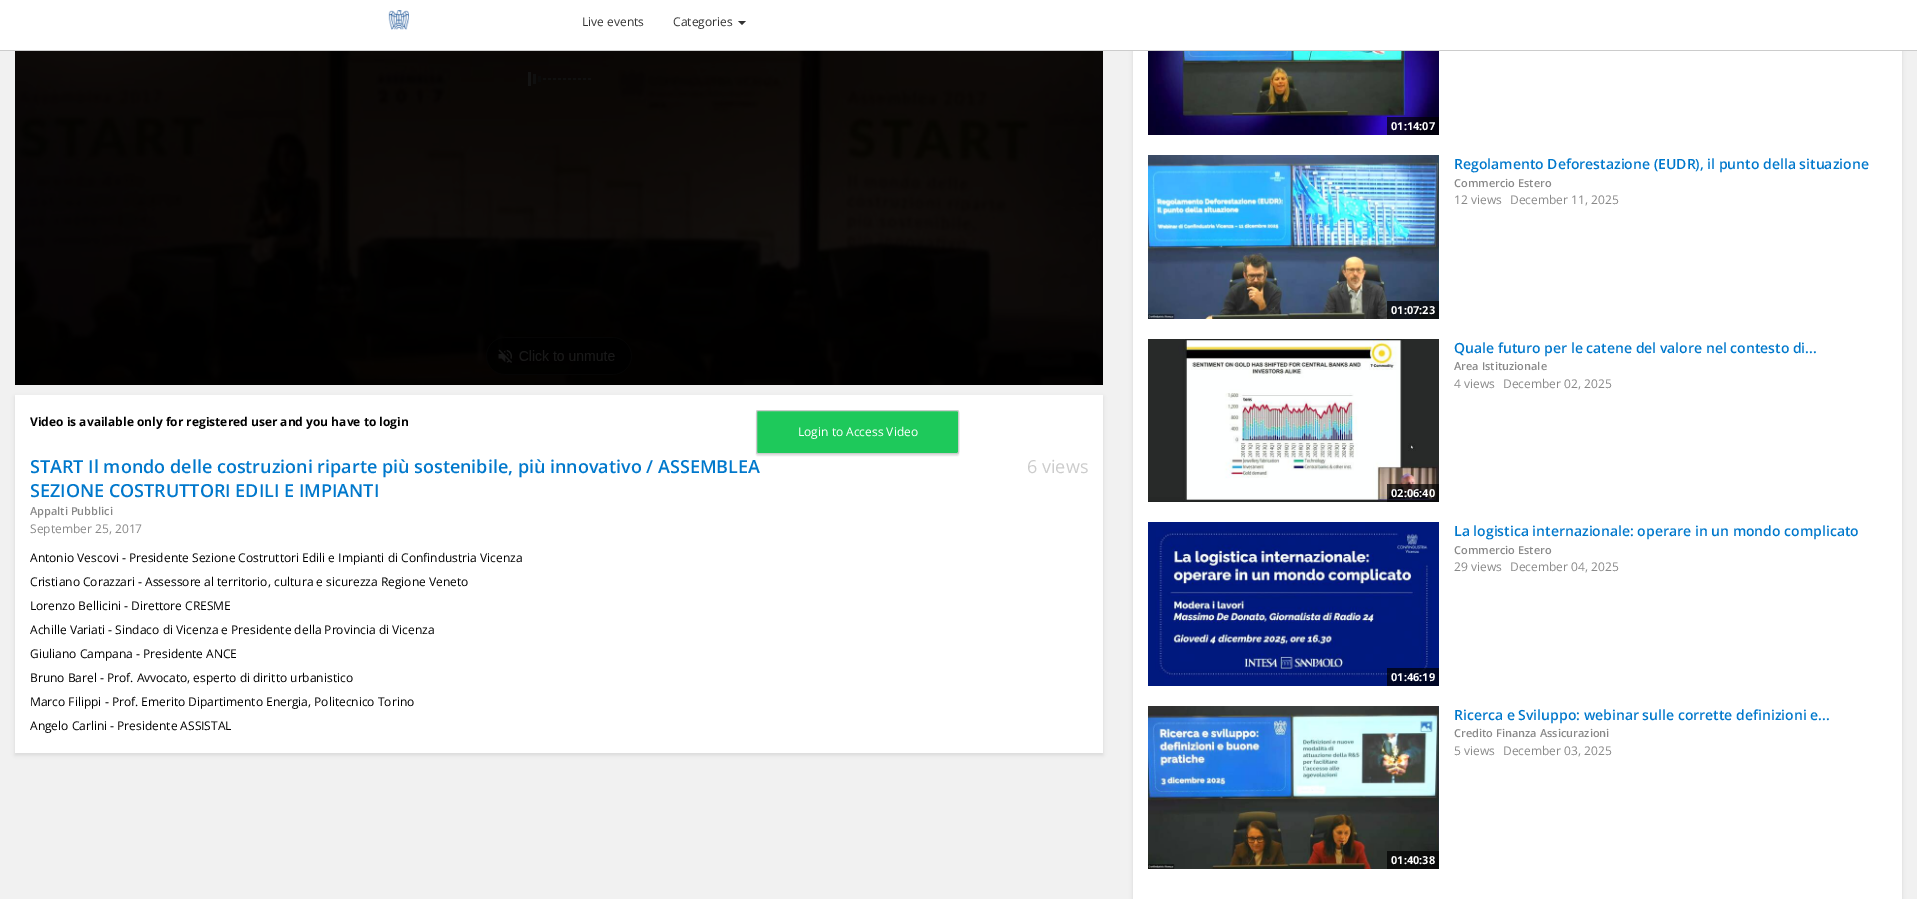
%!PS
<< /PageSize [1917 899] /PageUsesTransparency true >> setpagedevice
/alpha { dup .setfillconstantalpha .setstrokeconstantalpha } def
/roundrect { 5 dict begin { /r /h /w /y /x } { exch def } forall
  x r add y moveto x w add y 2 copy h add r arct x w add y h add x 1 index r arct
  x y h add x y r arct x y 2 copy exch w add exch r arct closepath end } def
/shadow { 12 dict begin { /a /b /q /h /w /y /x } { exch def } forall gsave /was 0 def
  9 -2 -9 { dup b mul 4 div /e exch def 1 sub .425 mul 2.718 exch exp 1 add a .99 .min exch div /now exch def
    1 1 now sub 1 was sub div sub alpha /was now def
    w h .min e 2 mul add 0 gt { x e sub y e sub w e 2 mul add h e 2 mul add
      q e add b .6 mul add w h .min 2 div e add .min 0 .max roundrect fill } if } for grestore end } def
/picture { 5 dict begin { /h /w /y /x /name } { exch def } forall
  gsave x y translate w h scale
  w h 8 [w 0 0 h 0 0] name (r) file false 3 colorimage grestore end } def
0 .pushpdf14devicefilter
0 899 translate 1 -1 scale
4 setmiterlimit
0.945 setgray
0 0 1917 899 rectfill
0 setgray
1133 -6 769 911 0 2 0.1 shadow
1 setgray
0 0 1917 50 rectfill
0.8 setgray
0 50 1917 1 rectfill
(img1.rgb) 388 10 21 20 picture
/OpenSans-Regular [12 0 0 -12 0 0] selectfont
0.2 setgray
582 26 moveto (Live events) show
673 26 moveto (Categories) show
newpath 738 21 moveto 746 21 lineto 742 25 lineto closepath fill
(img2.rgb) 15 51 1088 334 picture
0 setgray
15 397 1088 358 0 2 0.1 shadow
1 setgray
15 395 1088 358 rectfill
/OpenSans-Bold [12 0 0 -12 0 0] selectfont
0 setgray
30 426 moveto (Video is available only for registered user and you have to login) show
756 412 203 44 2 0.5 0.1 shadow
0.118 0.788 0.357 setrgbcolor
756.5 410.5 202 43 1.5 roundrect gsave fill grestore
0.8 setgray
stroke
/OpenSans-Regular [12 0 0 -12 0 0] selectfont
1 setgray
798 436 moveto (Login to Access Video) show
/OpenSans-SemiBold [18 0 0 -18 0 0] selectfont
0 0.471 0.8 setrgbcolor
30 473 moveto (START Il mondo delle costruzioni riparte più sostenibile, più innovativo / ASSEMBLEA) show
30 497 moveto (SEZIONE COSTRUTTORI EDILI E IMPIANTI) show
/OpenSans-SemiBold [11 0 0 -11 0 0] selectfont
0.533 setgray
30 515 moveto (Appalti Pubblici) show
/OpenSans-Regular [18 0 0 -18 0 0] selectfont
0.8 setgray
1027 473 moveto (6 views) show
/OpenSans-Regular [12 0 0 -12 0 0] selectfont
0.533 setgray
30 533 moveto (September 25, 2017) show
0 setgray
30 562 moveto (Antonio Vescovi - Presidente Sezione Costruttori Edili e Impianti di Confindustria Vicenza) show
30 586 moveto (Cristiano Corazzari - Assessore al territorio, cultura e sicurezza Regione Veneto) show
30 610 moveto (Lorenzo Bellicini - Direttore CRESME) show
30 634 moveto (Achille Variati - Sindaco di Vicenza e Presidente della Provincia di Vicenza) show
30 658 moveto (Giuliano Campana - Presidente ANCE) show
30 682 moveto (Bruno Barel - Prof. Avvocato, esperto di diritto urbanistico) show
30 706 moveto (Marco Filippi - Prof. Emerito Dipartimento Energia, Politecnico Torino) show
30 730 moveto (Angelo Carlini - Presidente ASSISTAL) show
1 setgray
1133 51 769 848 rectfill
(img3.rgb) 1148 51 291 84 picture
0.7 alpha
0 setgray
1387 117 52 18 rectfill
/OpenSans-Bold [11 0 0 -11 0 0] selectfont
1 alpha
1 setgray
1391 130 moveto (01:14:07) show
/OpenSans-SemiBold [14 0 0 -14 0 0] selectfont
0 0.471 0.8 setrgbcolor
1454 169 moveto (Regolamento Deforestazione \(EUDR\), il punto della situazione) show
/OpenSans-SemiBold [11 0 0 -11 0 0] selectfont
0.533 setgray
1454 187 moveto (Commercio Estero) show
/OpenSans-Regular [12 0 0 -12 0 0] selectfont
1454 204 moveto (12 views) show
1510 204 moveto (December 11, 2025) show
(img4.rgb) 1148 155 291 164 picture
0.7 alpha
0 setgray
1387 301 52 18 rectfill
/OpenSans-Bold [11 0 0 -11 0 0] selectfont
1 alpha
1 setgray
1391 314 moveto (01:07:23) show
/OpenSans-SemiBold [14 0 0 -14 0 0] selectfont
0 0.471 0.8 setrgbcolor
1454 353 moveto (Quale futuro per le catene del valore nel contesto di...) show
/OpenSans-SemiBold [11 0 0 -11 0 0] selectfont
0.533 setgray
1454 370 moveto (Area Istituzionale) show
/OpenSans-Regular [12 0 0 -12 0 0] selectfont
1454 388 moveto (4 views) show
1503 388 moveto (December 02, 2025) show
(img5.rgb) 1148 339 291 163 picture
0.7 alpha
0 setgray
1387 484 52 18 rectfill
/OpenSans-Bold [11 0 0 -11 0 0] selectfont
1 alpha
1 setgray
1391 497 moveto (02:06:40) show
/OpenSans-SemiBold [14 0 0 -14 0 0] selectfont
0 0.471 0.8 setrgbcolor
1454 536 moveto (La logistica internazionale: operare in un mondo complicato) show
/OpenSans-SemiBold [11 0 0 -11 0 0] selectfont
0.533 setgray
1454 554 moveto (Commercio Estero) show
/OpenSans-Regular [12 0 0 -12 0 0] selectfont
1454 571 moveto (29 views) show
1510 571 moveto (December 04, 2025) show
(img6.rgb) 1148 522 291 164 picture
0.7 alpha
0 setgray
1387 668 52 18 rectfill
/OpenSans-Bold [11 0 0 -11 0 0] selectfont
1 alpha
1 setgray
1391 681 moveto (01:46:19) show
/OpenSans-SemiBold [14 0 0 -14 0 0] selectfont
0 0.471 0.8 setrgbcolor
1454 720 moveto (Ricerca e Sviluppo: webinar sulle corrette definizioni e...) show
/OpenSans-SemiBold [11 0 0 -11 0 0] selectfont
0.533 setgray
1454 737 moveto (Credito Finanza Assicurazioni) show
/OpenSans-Regular [12 0 0 -12 0 0] selectfont
1454 755 moveto (5 views) show
1503 755 moveto (December 03, 2025) show
(img7.rgb) 1148 706 291 163 picture
0.7 alpha
0 setgray
1387 851 52 18 rectfill
/OpenSans-Bold [11 0 0 -11 0 0] selectfont
1 alpha
1 setgray
1391 864 moveto (01:40:38) show
.poppdf14devicefilter showpage
